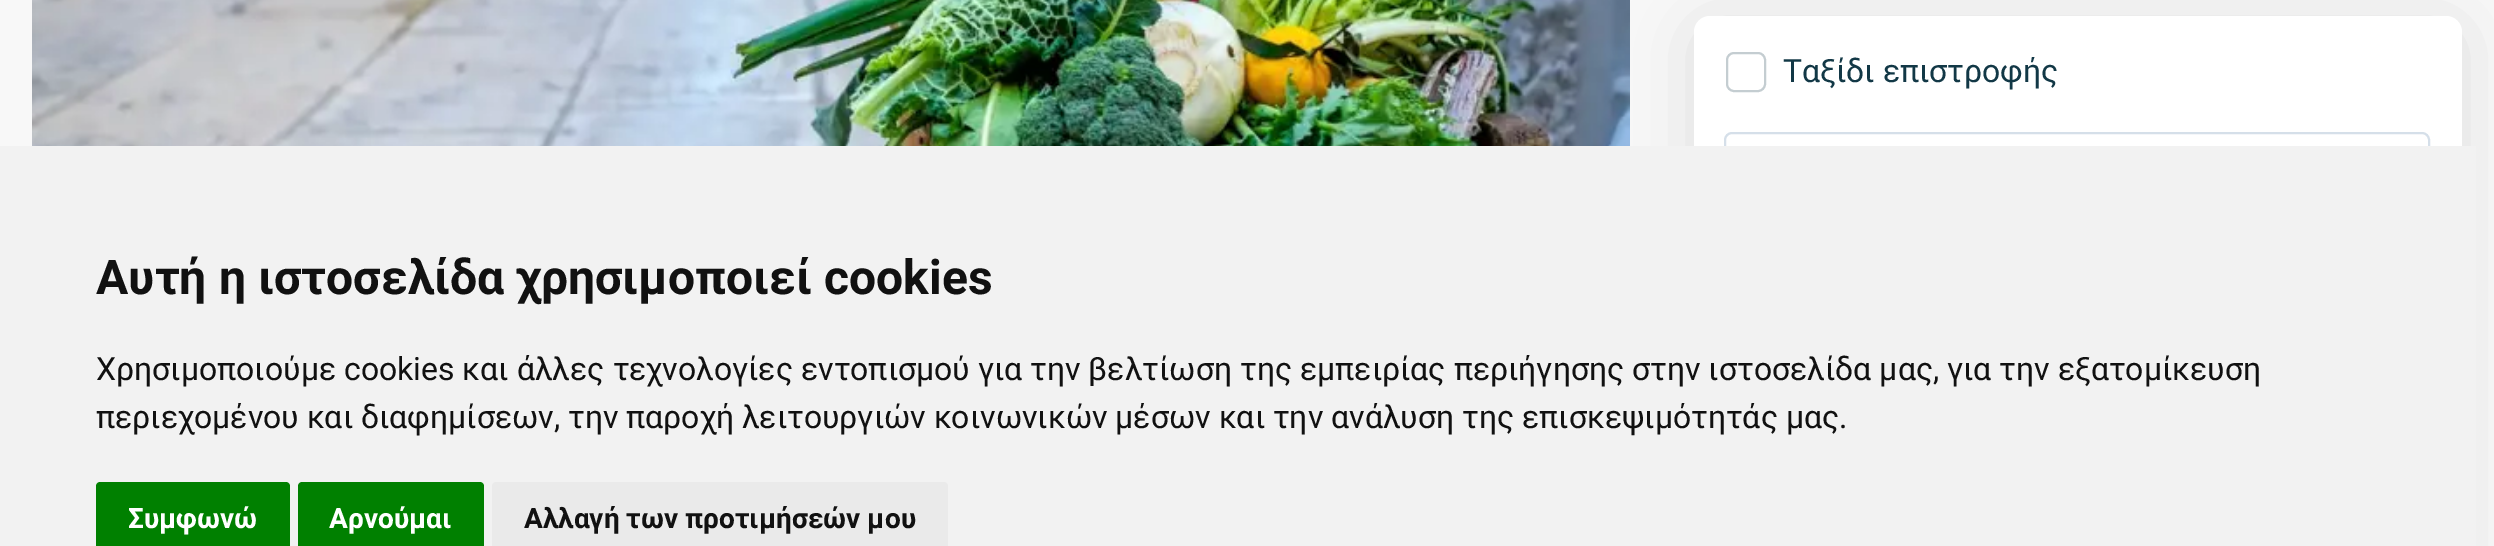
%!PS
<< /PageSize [2494 546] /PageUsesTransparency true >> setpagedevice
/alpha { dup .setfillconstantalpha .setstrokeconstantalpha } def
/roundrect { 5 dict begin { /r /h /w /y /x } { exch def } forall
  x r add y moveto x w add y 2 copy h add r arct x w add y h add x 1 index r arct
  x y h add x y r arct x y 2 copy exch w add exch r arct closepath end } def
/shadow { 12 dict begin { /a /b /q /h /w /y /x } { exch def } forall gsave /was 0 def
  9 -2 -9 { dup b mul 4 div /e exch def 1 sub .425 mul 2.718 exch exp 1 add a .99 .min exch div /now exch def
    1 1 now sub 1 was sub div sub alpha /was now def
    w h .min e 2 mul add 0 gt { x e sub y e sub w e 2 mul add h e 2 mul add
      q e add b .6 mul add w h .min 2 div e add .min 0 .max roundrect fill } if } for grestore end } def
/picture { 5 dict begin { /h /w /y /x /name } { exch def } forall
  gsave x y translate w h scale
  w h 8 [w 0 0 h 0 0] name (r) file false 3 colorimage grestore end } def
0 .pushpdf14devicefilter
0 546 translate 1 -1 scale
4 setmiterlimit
0.973 setgray
0 0 2494 546 rectfill
(img1.rgb) 32 0 1598 146 picture
0 setgray
1694 24 768 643 16 35 0.1 shadow
1 setgray
1694 16 768 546 16 roundrect fill
0.769 0.804 0.82 setrgbcolor
2 setlinewidth
1727 53 38 38 7 roundrect stroke
/Roboto-Regular [32 0 0 -32 0 0] selectfont
0.071 0.22 0.275 setrgbcolor
1783 82 moveto (Ταξίδι επιστροφής) show
0.835 0.875 0.914 setrgbcolor
1725 133 704 114 7 roundrect stroke
0.949 setgray
0 146 2476 400 rectfill
/Roboto-Bold [48 0 0 -48 0 0] selectfont
0.067 setgray
96 294 moveto (Αυτή η ιστοσελίδα χρησιμοποιεί cookies) show
/Roboto-Regular [32 0 0 -32 0 0] selectfont
96 380 moveto (Χρησιμοποιούμε cookies και άλλες τεχνολογίες εντοπισμού για την βελτίωση της εμπειρίας περιήγησης στην ιστοσελίδα μας, για την εξατομίκευση) show
96 428 moveto (περιεχομένου και διαφημίσεων, την παροχή λειτουργιών κοινωνικών μέσων και την ανάλυση της επισκεψιμότητάς μας.) show
0 0.502 0 setrgbcolor
newpath 100 482 moveto 286 482 lineto 288 482 290 484 290 486 curveto 290 546 lineto 96 546 lineto 96 486 lineto 96 484 98 482 100 482 curveto closepath fill
/Roboto-Bold [28 0 0 -28 0 0] selectfont
1 setgray
128 528 moveto (Συμφωνώ) show
0 0.502 0 setrgbcolor
newpath 302 482 moveto 480 482 lineto 482 482 484 484 484 486 curveto 484 546 lineto 298 546 lineto 298 486 lineto 298 484 300 482 302 482 curveto closepath fill
1 setgray
329 528 moveto (Αρνούμαι) show
0.918 setgray
newpath 496 482 moveto 944 482 lineto 946 482 948 484 948 486 curveto 948 546 lineto 492 546 lineto 492 486 lineto 492 484 494 482 496 482 curveto closepath fill
0.067 setgray
524 528 moveto (Αλλαγή των προτιμήσεών μου) show
.poppdf14devicefilter showpage
